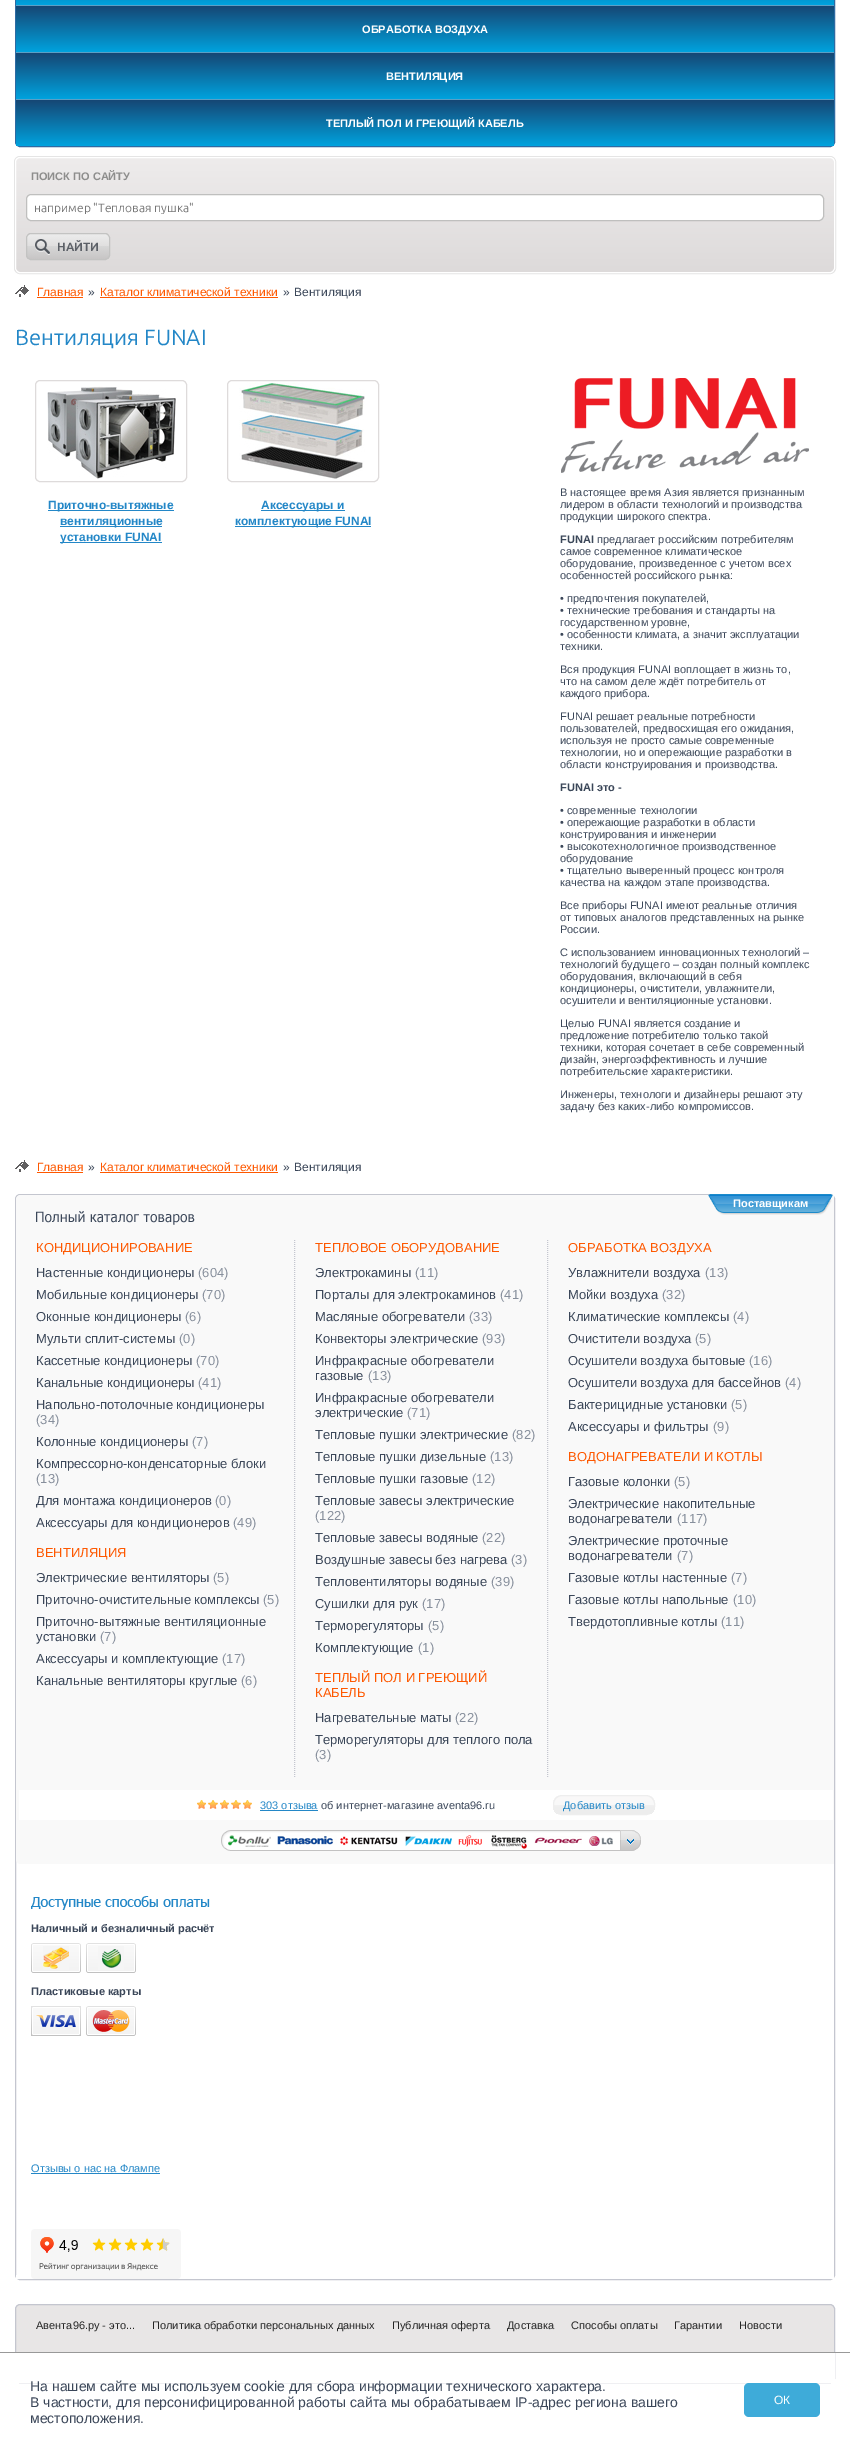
%!PS
<< /PageSize [850 2451] >> setpagedevice
/roundrect { 5 dict begin { /r /h /w /y /x } { exch def } forall
  x r add y moveto x w add y 2 copy h add r arct x w add y h add x 1 index r arct
  x y h add x y r arct x y 2 copy exch w add exch r arct closepath end } def
/picture { 5 dict begin { /h /w /y /x /name } { exch def } forall
  gsave x y translate w h scale
  w h 8 [w 0 0 h 0 0] name (r) file false 3 colorimage grestore end } def
0 2451 translate 1 -1 scale
4 setmiterlimit
1 setgray
0 0 850 2451 rectfill
0.18 0.416 0.635 setrgbcolor
15.5 -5.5 819 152 4.5 roundrect stroke
gsave newpath 16 0 moveto 834 0 lineto 834 5 lineto 16 5 lineto closepath clip newpath
<< /ShadingType 2 /ColorSpace /DeviceRGB /Coords [16 -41 16 5] /Extend [true true] /Function << /FunctionType 2 /Domain [0 1] /C0 [0.086 0.278 0.455] /C1 [0 0.635 0.871] /N 1 >> >> shfill grestore
gsave newpath 16 6 moveto 834 6 lineto 834 52 lineto 16 52 lineto closepath clip newpath
<< /ShadingType 2 /ColorSpace /DeviceRGB /Coords [16 6 16 52] /Extend [true true] /Function << /FunctionType 2 /Domain [0 1] /C0 [0.086 0.278 0.455] /C1 [0 0.635 0.871] /N 1 >> >> shfill grestore
0.361 0.624 0.773 setrgbcolor
16 5 818 1 rectfill
/LiberationSans-Bold [11 0 0 -11 0 0] selectfont
1 setgray
362 33 moveto (ОБРАБОТКА ВОЗДУХА) show
gsave newpath 16 53 moveto 834 53 lineto 834 99 lineto 16 99 lineto closepath clip newpath
<< /ShadingType 2 /ColorSpace /DeviceRGB /Coords [16 53 16 99] /Extend [true true] /Function << /FunctionType 2 /Domain [0 1] /C0 [0.086 0.278 0.455] /C1 [0 0.635 0.871] /N 1 >> >> shfill grestore
0.361 0.624 0.773 setrgbcolor
16 52 818 1 rectfill
1 setgray
386 80 moveto (ВЕНТИЛЯЦИЯ) show
gsave newpath 16 100 moveto 834 100 lineto 834 146 lineto 16 146 lineto closepath clip newpath
<< /ShadingType 2 /ColorSpace /DeviceRGB /Coords [16 100 16 146] /Extend [true true] /Function << /FunctionType 2 /Domain [0 1] /C0 [0.086 0.278 0.455] /C1 [0 0.635 0.871] /N 1 >> >> shfill grestore
0.361 0.624 0.773 setrgbcolor
16 99 818 1 rectfill
1 setgray
326 127 moveto (ТЕПЛЫЙ ПОЛ И ГРЕЮЩИЙ КАБЕЛЬ) show
0.898 setgray
14.5 156.5 821 117 5.5 roundrect stroke
gsave
15 157 820 116 5 roundrect clip newpath
gsave newpath 15 158 moveto 835 158 lineto 835 272 lineto 15 272 lineto closepath clip newpath
<< /ShadingType 2 /ColorSpace /DeviceRGB /Coords [16 158 16 272] /Extend [true true] /Function << /FunctionType 2 /Domain [0 1] /C0 [0.933 0.925 0.925] /C1 [0.867 0.855 0.855] /N 1 >> >> shfill grestore
grestore
1 setgray
15.5 157.5 819 115 4.5 roundrect stroke
0.553 0.553 0.549 setrgbcolor
31 180 moveto (ПОИСК ПО САЙТУ) show
1 setgray
26.5 194.5 797 26 4.5 roundrect gsave fill grestore
0.749 0.749 0.745 setrgbcolor
stroke
gsave
34 201 788 13 rectclip
/Ubuntu-Regular [12 0 0 -12 0 0] selectfont
0.459 setgray
34 212 moveto (например "Тепловая пушка") show
grestore
(img1.rgb) 26 233 84 27 picture
0.765 0.765 0.761 setrgbcolor
26.5 233.5 83 26 4.5 roundrect stroke
/Ubuntu-Bold [12 0 0 -12 0 0] selectfont
0.361 0.376 0.404 setrgbcolor
57 251 moveto (НАЙТИ) show
(img2.rgb) 15 285 14 12 picture
/LiberationSans-Regular [12 0 0 -12 0 0] selectfont
0.996 0.345 0 setrgbcolor
37 296 moveto (Главная) show
37 297 46 1 rectfill
0.231 0.278 0.349 setrgbcolor
88 296 moveto (») show
0.996 0.345 0 setrgbcolor
100 296 moveto (Каталог климатической техники) show
100 297 178 1 rectfill
0.231 0.278 0.349 setrgbcolor
283 296 moveto (») show
294 296 moveto (Вентиляция) show
/Ubuntu-Regular [22 0 0 -22 0 0] selectfont
0.137 0.529 0.78 setrgbcolor
15 345 moveto (Вентиляция FUNAI) show
0.871 0.859 0.859 setrgbcolor
35.5 380.5 151 101 4.5 roundrect stroke
(img3.rgb) 47 386 129 93 picture
0.137 0.529 0.78 setrgbcolor
48 510 126 1 rectfill
/LiberationSans-Bold [12 0 0 -12 0 0] selectfont
48 509 moveto (Приточно-вытяжные) show
60 526 102 1 rectfill
60 525 moveto (вентиляционные) show
60 542 102 1 rectfill
60 541 moveto (установки FUNAI) show
0.871 0.859 0.859 setrgbcolor
227.5 380.5 151 101 4.5 roundrect stroke
(img4.rgb) 239 382 126 97 picture
0.137 0.529 0.78 setrgbcolor
261 510 84 1 rectfill
261 509 moveto (Аксессуары и) show
235 526 136 1 rectfill
235 525 moveto (комплектующие FUNAI) show
(img5.rgb) 561 378 248 95 picture
/LiberationSans-Regular [11 0 0 -11 0 0] selectfont
0.231 0.278 0.349 setrgbcolor
560 496 moveto (В настоящее время Азия является признанным) show
560 508 moveto (лидером в области технологий и производства) show
560 520 moveto (продукции широкого спектра.) show
/LiberationSans-Bold [11 0 0 -11 0 0] selectfont
560 543 moveto (FUNAI) show
/LiberationSans-Regular [11 0 0 -11 0 0] selectfont
597 543 moveto (предлагает российским потребителям) show
560 555 moveto (самое современное климатическое) show
560 567 moveto (оборудование, произведенное с учетом всех) show
560 579 moveto (особенностей российского рынка:) show
560 602 moveto (• предпочтения покупателей,) show
560 614 moveto (• технические требования и стандарты на) show
560 626 moveto (государственном уровне,) show
560 638 moveto (• особенности климата, а значит эксплуатации) show
560 650 moveto (техники.) show
560 673 moveto (Вся продукция FUNAI воплощает в жизнь то,) show
560 685 moveto (что на самом деле ждёт потребитель от) show
560 697 moveto (каждого прибора.) show
560 720 moveto (FUNAI решает реальные потребности) show
560 732 moveto (пользователей, предвосхищая его ожидания,) show
560 744 moveto (используя не просто самые современные) show
560 756 moveto (технологии, но и опережающие разработки в) show
560 768 moveto (области конструирования и производства.) show
/LiberationSans-Bold [11 0 0 -11 0 0] selectfont
560 791 moveto (FUNAI это -) show
/LiberationSans-Regular [11 0 0 -11 0 0] selectfont
560 814 moveto (• современные технологии) show
560 826 moveto (• опережающие разработки в области) show
560 838 moveto (конструирования и инженерии) show
560 850 moveto (• высокотехнологичное производственное) show
560 862 moveto (оборудование) show
560 874 moveto (• тщательно выверенный процесс контроля) show
560 886 moveto (качества на каждом этапе производства.) show
560 909 moveto (Все приборы FUNAI имеют реальные отличия) show
560 921 moveto (от типовых аналогов представленных на рынке) show
560 933 moveto (России.) show
560 956 moveto (С использованием инновационных технологий –) show
560 968 moveto (технологий будущего – создан полный комплекс) show
560 980 moveto (оборудования, включающий в себя) show
560 992 moveto (кондиционеры, очистители, увлажнители,) show
560 1004 moveto (осушители и вентиляционные установки.) show
560 1027 moveto (Целью FUNAI является создание и) show
560 1039 moveto (предложение потребителю только такой) show
560 1051 moveto (техники, которая сочетает в себе современный) show
560 1063 moveto (дизайн, энергоэффективность и лучшие) show
560 1075 moveto (потребительские характеристики.) show
560 1098 moveto (Инженеры, технологи и дизайнеры решают эту) show
560 1110 moveto (задачу без каких-либо компромиссов.) show
(img2.rgb) 15 1160 14 12 picture
/LiberationSans-Regular [12 0 0 -12 0 0] selectfont
0.996 0.345 0 setrgbcolor
37 1171 moveto (Главная) show
37 1172 46 1 rectfill
0.231 0.278 0.349 setrgbcolor
88 1171 moveto (») show
0.996 0.345 0 setrgbcolor
100 1171 moveto (Каталог климатической техники) show
100 1172 178 1 rectfill
0.231 0.278 0.349 setrgbcolor
283 1171 moveto (») show
294 1171 moveto (Вентиляция) show
0.769 0.776 0.812 setrgbcolor
15.5 1194.5 819 1085 4.5 roundrect stroke
0.976 setgray
newpath 21 1195 moveto 834 1195 lineto 834 1864 lineto 21 1864 lineto 18 1864 16 1862 16 1859 curveto 16 1200 lineto 16 1197 18 1195 21 1195 curveto closepath fill
(img6.rgb) 708 1194 125 21 picture
/LiberationSans-Bold [11 0 0 -11 0 0] selectfont
1 setgray
733 1207 moveto (Поставщикам) show
(img7.rgb) 36 1211 159 14 picture
/LiberationSans-Regular [13 0 0 -13 0 0] selectfont
0.996 0.345 0 setrgbcolor
36 1252 moveto (КОНДИЦИОНИРОВАНИЕ) show
0.231 0.278 0.349 setrgbcolor
36 1277 moveto (Настенные кондиционеры) show
0.529 0.561 0.612 setrgbcolor
198 1277 moveto (\(604\)) show
0.231 0.278 0.349 setrgbcolor
36 1299 moveto (Мобильные кондиционеры) show
0.529 0.561 0.612 setrgbcolor
202 1299 moveto (\(70\)) show
0.231 0.278 0.349 setrgbcolor
36 1321 moveto (Оконные кондиционеры) show
0.529 0.561 0.612 setrgbcolor
185 1321 moveto (\(6\)) show
0.231 0.278 0.349 setrgbcolor
36 1343 moveto (Мульти сплит-системы) show
0.529 0.561 0.612 setrgbcolor
179 1343 moveto (\(0\)) show
0.231 0.278 0.349 setrgbcolor
36 1365 moveto (Кассетные кондиционеры) show
0.529 0.561 0.612 setrgbcolor
196 1365 moveto (\(70\)) show
0.231 0.278 0.349 setrgbcolor
36 1387 moveto (Канальные кондиционеры) show
0.529 0.561 0.612 setrgbcolor
198 1387 moveto (\(41\)) show
0.231 0.278 0.349 setrgbcolor
36 1409 moveto (Напольно-потолочные кондиционеры) show
0.529 0.561 0.612 setrgbcolor
36 1424 moveto (\(34\)) show
0.231 0.278 0.349 setrgbcolor
36 1446 moveto (Колонные кондиционеры) show
0.529 0.561 0.612 setrgbcolor
192 1446 moveto (\(7\)) show
0.231 0.278 0.349 setrgbcolor
36 1468 moveto (Компрессорно-конденсаторные блоки) show
0.529 0.561 0.612 setrgbcolor
36 1483 moveto (\(13\)) show
0.231 0.278 0.349 setrgbcolor
36 1505 moveto (Для монтажа кондиционеров) show
0.529 0.561 0.612 setrgbcolor
215 1505 moveto (\(0\)) show
0.231 0.278 0.349 setrgbcolor
36 1527 moveto (Аксессуары для кондиционеров) show
0.529 0.561 0.612 setrgbcolor
233 1527 moveto (\(49\)) show
0.996 0.345 0 setrgbcolor
36 1557 moveto (ВЕНТИЛЯЦИЯ) show
0.231 0.278 0.349 setrgbcolor
36 1582 moveto (Электрические вентиляторы) show
0.529 0.561 0.612 setrgbcolor
213 1582 moveto (\(5\)) show
0.231 0.278 0.349 setrgbcolor
36 1604 moveto (Приточно-очистительные комплексы) show
0.529 0.561 0.612 setrgbcolor
263 1604 moveto (\(5\)) show
0.231 0.278 0.349 setrgbcolor
36 1626 moveto (Приточно-вытяжные вентиляционные) show
36 1641 moveto (установки) show
0.529 0.561 0.612 setrgbcolor
100 1641 moveto (\(7\)) show
0.231 0.278 0.349 setrgbcolor
36 1663 moveto (Аксессуары и комплектующие) show
0.529 0.561 0.612 setrgbcolor
222 1663 moveto (\(17\)) show
0.231 0.278 0.349 setrgbcolor
36 1685 moveto (Канальные вентиляторы круглые) show
0.529 0.561 0.612 setrgbcolor
241 1685 moveto (\(6\)) show
0.769 0.776 0.812 setrgbcolor
[1 1] 0 setdash
newpath 294.5 1240 moveto 294.5 1777 lineto stroke
0.996 0.345 0 setrgbcolor
315 1252 moveto (ТЕПЛОВОЕ ОБОРУДОВАНИЕ) show
0.231 0.278 0.349 setrgbcolor
315 1277 moveto (Электрокамины) show
0.529 0.561 0.612 setrgbcolor
415 1277 moveto (\(11\)) show
0.231 0.278 0.349 setrgbcolor
315 1299 moveto (Порталы для электрокаминов) show
0.529 0.561 0.612 setrgbcolor
500 1299 moveto (\(41\)) show
0.231 0.278 0.349 setrgbcolor
315 1321 moveto (Масляные обогреватели) show
0.529 0.561 0.612 setrgbcolor
469 1321 moveto (\(33\)) show
0.231 0.278 0.349 setrgbcolor
315 1343 moveto (Конвекторы электрические) show
0.529 0.561 0.612 setrgbcolor
482 1343 moveto (\(93\)) show
0.231 0.278 0.349 setrgbcolor
315 1365 moveto (Инфракрасные обогреватели) show
315 1380 moveto (газовые) show
0.529 0.561 0.612 setrgbcolor
368 1380 moveto (\(13\)) show
0.231 0.278 0.349 setrgbcolor
315 1402 moveto (Инфракрасные обогреватели) show
315 1417 moveto (электрические) show
0.529 0.561 0.612 setrgbcolor
407 1417 moveto (\(71\)) show
0.231 0.278 0.349 setrgbcolor
315 1439 moveto (Тепловые пушки электрические) show
0.529 0.561 0.612 setrgbcolor
512 1439 moveto (\(82\)) show
0.231 0.278 0.349 setrgbcolor
315 1461 moveto (Тепловые пушки дизельные) show
0.529 0.561 0.612 setrgbcolor
490 1461 moveto (\(13\)) show
0.231 0.278 0.349 setrgbcolor
315 1483 moveto (Тепловые пушки газовые) show
0.529 0.561 0.612 setrgbcolor
472 1483 moveto (\(12\)) show
0.231 0.278 0.349 setrgbcolor
315 1505 moveto (Тепловые завесы электрические) show
0.529 0.561 0.612 setrgbcolor
315 1520 moveto (\(122\)) show
0.231 0.278 0.349 setrgbcolor
315 1542 moveto (Тепловые завесы водяные) show
0.529 0.561 0.612 setrgbcolor
482 1542 moveto (\(22\)) show
0.231 0.278 0.349 setrgbcolor
315 1564 moveto (Воздушные завесы без нагрева) show
0.529 0.561 0.612 setrgbcolor
511 1564 moveto (\(3\)) show
0.231 0.278 0.349 setrgbcolor
315 1586 moveto (Тепловентиляторы водяные) show
0.529 0.561 0.612 setrgbcolor
491 1586 moveto (\(39\)) show
0.231 0.278 0.349 setrgbcolor
315 1608 moveto (Сушилки для рук) show
0.529 0.561 0.612 setrgbcolor
422 1608 moveto (\(17\)) show
0.231 0.278 0.349 setrgbcolor
315 1630 moveto (Терморегуляторы) show
0.529 0.561 0.612 setrgbcolor
428 1630 moveto (\(5\)) show
0.231 0.278 0.349 setrgbcolor
315 1652 moveto (Комплектующие) show
0.529 0.561 0.612 setrgbcolor
418 1652 moveto (\(1\)) show
0.996 0.345 0 setrgbcolor
315 1682 moveto (ТЕПЛЫЙ ПОЛ И ГРЕЮЩИЙ) show
315 1697 moveto (КАБЕЛЬ) show
0.231 0.278 0.349 setrgbcolor
315 1722 moveto (Нагревательные маты) show
0.529 0.561 0.612 setrgbcolor
455 1722 moveto (\(22\)) show
0.231 0.278 0.349 setrgbcolor
315 1744 moveto (Терморегуляторы для теплого пола) show
0.529 0.561 0.612 setrgbcolor
315 1759 moveto (\(3\)) show
0.769 0.776 0.812 setrgbcolor
newpath 547.5 1240 moveto 547.5 1777 lineto stroke
0.996 0.345 0 setrgbcolor
568 1252 moveto (ОБРАБОТКА ВОЗДУХА) show
0.231 0.278 0.349 setrgbcolor
568 1277 moveto (Увлажнители воздуха) show
0.529 0.561 0.612 setrgbcolor
705 1277 moveto (\(13\)) show
0.231 0.278 0.349 setrgbcolor
568 1299 moveto (Мойки воздуха) show
0.529 0.561 0.612 setrgbcolor
662 1299 moveto (\(32\)) show
0.231 0.278 0.349 setrgbcolor
568 1321 moveto (Климатические комплексы) show
0.529 0.561 0.612 setrgbcolor
733 1321 moveto (\(4\)) show
0.231 0.278 0.349 setrgbcolor
568 1343 moveto (Очистители воздуха) show
0.529 0.561 0.612 setrgbcolor
695 1343 moveto (\(5\)) show
0.231 0.278 0.349 setrgbcolor
568 1365 moveto (Осушители воздуха бытовые) show
0.529 0.561 0.612 setrgbcolor
749 1365 moveto (\(16\)) show
0.231 0.278 0.349 setrgbcolor
568 1387 moveto (Осушители воздуха для бассейнов) show
0.529 0.561 0.612 setrgbcolor
785 1387 moveto (\(4\)) show
0.231 0.278 0.349 setrgbcolor
568 1409 moveto (Бактерицидные установки) show
0.529 0.561 0.612 setrgbcolor
731 1409 moveto (\(5\)) show
0.231 0.278 0.349 setrgbcolor
568 1431 moveto (Аксессуары и фильтры) show
0.529 0.561 0.612 setrgbcolor
713 1431 moveto (\(9\)) show
0.996 0.345 0 setrgbcolor
568 1461 moveto (ВОДОНАГРЕВАТЕЛИ И КОТЛЫ) show
0.231 0.278 0.349 setrgbcolor
568 1486 moveto (Газовые колонки) show
0.529 0.561 0.612 setrgbcolor
674 1486 moveto (\(5\)) show
0.231 0.278 0.349 setrgbcolor
568 1508 moveto (Электрические накопительные) show
568 1523 moveto (водонагреватели) show
0.529 0.561 0.612 setrgbcolor
677 1523 moveto (\(117\)) show
0.231 0.278 0.349 setrgbcolor
568 1545 moveto (Электрические проточные) show
568 1560 moveto (водонагреватели) show
0.529 0.561 0.612 setrgbcolor
677 1560 moveto (\(7\)) show
0.231 0.278 0.349 setrgbcolor
568 1582 moveto (Газовые котлы настенные) show
0.529 0.561 0.612 setrgbcolor
731 1582 moveto (\(7\)) show
0.231 0.278 0.349 setrgbcolor
568 1604 moveto (Газовые котлы напольные) show
0.529 0.561 0.612 setrgbcolor
733 1604 moveto (\(10\)) show
0.231 0.278 0.349 setrgbcolor
568 1626 moveto (Твердотопливные котлы) show
0.529 0.561 0.612 setrgbcolor
721 1626 moveto (\(11\)) show
1 setgray
19 1790 814 30 rectfill
(img8.rgb) 197 1800 55 9 picture
/LiberationSans-Regular [11 0 0 -11 0 0] selectfont
0.137 0.529 0.78 setrgbcolor
260 1809 moveto (303 отзыва) show
260 1810 58 1 rectfill
0.231 0.278 0.349 setrgbcolor
321 1809 moveto (об интернет-магазине aventa96.ru) show
gsave
553 1795 102 20 9 roundrect clip newpath
gsave newpath 553 1796 moveto 655 1796 lineto 655 1814 lineto 553 1814 lineto closepath clip newpath
<< /ShadingType 2 /ColorSpace /DeviceRGB /Coords [554 1796 554 1814] /Extend [true true] /Function << /FunctionType 3 /Domain [0 1] /Functions [<< /FunctionType 2 /Domain [0 1] /C0 [0.98 0.976 0.976] /C1 [0.973 0.973 0.973] /N 1 >> << /FunctionType 2 /Domain [0 1] /C0 [0.941 0.941 0.941] /C1 [0.929 0.929 0.929] /N 1 >>] /Bounds [0.5] /Encode [0 1 0 1] >> >> shfill grestore
grestore
0.933 setgray
[] 0 setdash
553.5 1795.5 101 19 8.5 roundrect stroke
0.137 0.529 0.78 setrgbcolor
563 1809 moveto (Добавить отзыв) show
(img9.rgb) 221 1830 420 21 picture
1 setgray
16 2275 818 4 rectfill
(img10.rgb) 31 1896 179 14 picture
/LiberationSans-Bold [11 0 0 -11 0 0] selectfont
0.231 0.278 0.349 setrgbcolor
31 1932 moveto (Наличный и безналичный расчёт) show
(img11.rgb) 31 1943 50 30 picture
(img12.rgb) 86 1943 50 30 picture
31 1995 moveto (Пластиковые карты) show
(img13.rgb) 31 2006 50 30 picture
(img14.rgb) 86 2006 50 30 picture
/LiberationSans-Regular [11 0 0 -11 0 0] selectfont
0.137 0.529 0.78 setrgbcolor
31 2172 moveto (Отзывы о нас на Флампе) show
31 2173 129 1 rectfill
(img15.rgb) 31 2229 150 50 picture
0.91 0.902 0.902 setrgbcolor
15.5 2304.5 819 78 4.5 roundrect gsave fill grestore
0.769 0.776 0.812 setrgbcolor
stroke
0.149 setgray
36 2329 moveto (Авента96.ру - это...) show
152 2329 moveto (Политика обработки персональных данных) show
392 2329 moveto (Публичная оферта) show
507 2329 moveto (Доставка) show
571 2329 moveto (Способы оплаты) show
674 2329 moveto (Гарантии) show
739 2329 moveto (Новости) show
1 setgray
15 2353 820 30 rectfill
0.6 setgray
0 2352 850 1 rectfill
/LiberationSans-Regular [14 0 0 -14 0 0] selectfont
0.231 0.278 0.349 setrgbcolor
30 2391 moveto (На нашем сайте мы используем cookie для сбора информации технического характера.) show
30 2407 moveto (В частности, для персонифицированной работы сайта мы обрабатываем IP-адрес региона вашего) show
30 2423 moveto (местоположения.) show
0.243 0.671 0.851 setrgbcolor
744 2383 76 34 5 roundrect fill
/LiberationSans-Regular [12 0 0 -12 0 0] selectfont
1 setgray
774 2404 moveto (ОК) show
showpage
